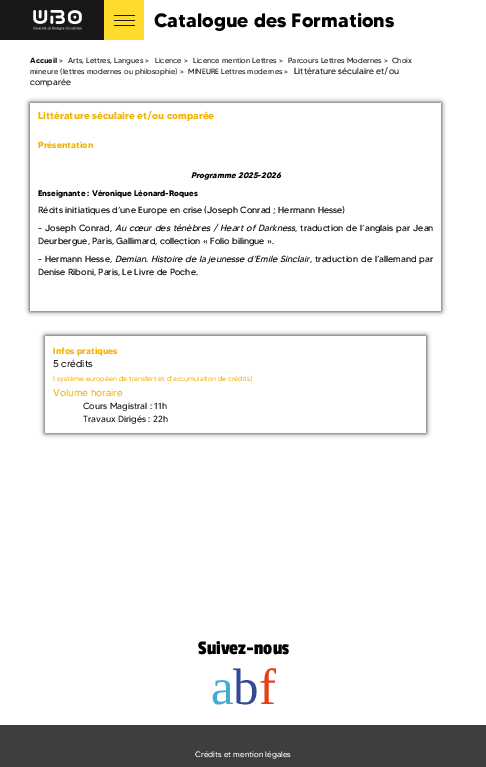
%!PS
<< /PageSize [486 767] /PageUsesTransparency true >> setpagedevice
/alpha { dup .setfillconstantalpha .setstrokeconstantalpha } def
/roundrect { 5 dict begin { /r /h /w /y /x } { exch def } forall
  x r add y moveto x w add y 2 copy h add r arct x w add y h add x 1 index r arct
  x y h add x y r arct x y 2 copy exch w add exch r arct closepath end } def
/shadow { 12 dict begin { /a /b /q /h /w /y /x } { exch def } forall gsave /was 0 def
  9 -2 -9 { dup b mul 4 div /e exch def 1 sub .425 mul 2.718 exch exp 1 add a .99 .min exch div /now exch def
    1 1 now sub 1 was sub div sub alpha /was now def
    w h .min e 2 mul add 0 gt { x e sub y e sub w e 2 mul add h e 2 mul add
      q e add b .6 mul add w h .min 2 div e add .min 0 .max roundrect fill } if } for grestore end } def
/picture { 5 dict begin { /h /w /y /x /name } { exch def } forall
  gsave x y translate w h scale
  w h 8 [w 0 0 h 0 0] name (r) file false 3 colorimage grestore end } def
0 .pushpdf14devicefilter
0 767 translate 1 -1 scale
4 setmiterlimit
1 setgray
0 0 486 767 rectfill
0.102 0.09 0.106 setrgbcolor
0 0 104 40 rectfill
(img1.rgb) 33 10 49 20 picture
1 0.863 0.169 setrgbcolor
104 0 40 40 rectfill
0.106 0.094 0.11 setrgbcolor
114 15 21 1 rectfill
114 20 21 1 rectfill
114 25 21 1 rectfill
/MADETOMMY-Bold [19.4 0 0 -19.4 0 0] selectfont
0 setgray
154 27 moveto (Catalogue des Formations) show
/MADETOMMY-Bold [7.6 0 0 -7.6 0 0] selectfont
0.102 0.09 0.106 setrgbcolor
30 63 moveto (Accueil) show
/MADETOMMY-Regular [7.6 0 0 -7.6 0 0] selectfont
59 63 moveto (>) show
68 63 moveto (Arts, Lettres, Langues >) show
155 63 moveto (Licence >) show
193 63 moveto (Licence mention Lettres >) show
288 63 moveto (Parcours Lettres Modernes >) show
392 63 moveto (Choix) show
30 74 moveto (mineure \(lettres modernes ou philosophie\) >) show
188 74 moveto (MINEURE Lettres modernes >) show
/MADETOMMY-Regular [8.75 0 0 -8.75 0 0] selectfont
294 74 moveto (Littérature séculaire et/ou) show
30 85 moveto (comparée) show
gsave
newpath 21 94 moveto 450 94 lineto 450 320 lineto 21 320 lineto closepath 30 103 moveto 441 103 lineto 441 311 lineto 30 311 lineto closepath eoclip newpath
30 103 411 208 0 2.5 1 shadow
grestore
/MADETOMMY-Bold [10 0 0 -10 0 0] selectfont
0.949 0.702 0.051 setrgbcolor
38 119 moveto (Littérature séculaire et/ou comparée) show
/MADETOMMY-Bold [9 0 0 -9 0 0] selectfont
38 148 moveto (Présentation) show
/MADETOMMY-BoldItalic [8.1 0 0 -8.1 0 0] selectfont
0 setgray
191 178 moveto (Programme 2025-2026) show
/MADETOMMY-Bold [8.1 0 0 -8.1 0 0] selectfont
38 196 moveto (Enseignante : Véronique Léonard-Roques) show
/MADETOMMY-Regular [9 0 0 -9 0 0] selectfont
38 213 moveto (Récits initiatiques d’une Europe en crise \(Joseph Conrad ; Hermann Hesse\)) show
38 231 moveto 0.75 0 32 (- Joseph Conrad,) widthshow
/MADETOMMY-Italic [9 0 0 -9 0 0] selectfont
115 231 moveto 0.75 0 32 (Au cœur des ténèbres / Heart of Darkness) widthshow
/MADETOMMY-Regular [9 0 0 -9 0 0] selectfont
295 231 moveto 0.75 0 32 (, traduction de l’anglais par Jean) widthshow
38 244 moveto (Deurbergue, Paris, Gallimard, collection « Folio bilingue ».) show
38 262 moveto 0.5 0 32 (- Hermann Hesse,) widthshow
/MADETOMMY-Italic [9 0 0 -9 0 0] selectfont
115 262 moveto 0.5 0 32 (Demian. Histoire de la jeunesse d’Emile Sinclair) widthshow
/MADETOMMY-Regular [9 0 0 -9 0 0] selectfont
310 262 moveto 0.5 0 32 (, traduction de l’allemand par) widthshow
38 275 moveto (Denise Riboni, Paris, Le Livre de Poche.) show
gsave
newpath 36 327 moveto 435 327 lineto 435 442 lineto 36 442 lineto closepath 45 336 moveto 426 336 lineto 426 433 lineto 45 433 lineto closepath eoclip newpath
0.102 0.09 0.106 setrgbcolor
45 336 381 97 0 2.5 1 shadow
grestore
/MADETOMMY-Bold [9 0 0 -9 0 0] selectfont
0.949 0.702 0.051 setrgbcolor
53 354 moveto (Infos pratiques) show
/MADETOMMY-Regular [10 0 0 -10 0 0] selectfont
0.102 0.09 0.106 setrgbcolor
53 367 moveto (5 crédits) show
/MADETOMMY-Regular [7 0 0 -7 0 0] selectfont
0.949 0.702 0.051 setrgbcolor
53 381 moveto (\( système européen de transfert et d'accumulation de crédits\)) show
/MADETOMMY-Regular [10 0 0 -10 0 0] selectfont
53 396 moveto (Volume horaire) show
/MADETOMMY-Regular [9 0 0 -9 0 0] selectfont
0.102 0.09 0.106 setrgbcolor
83 409 moveto (Cours Magistral : 11h) show
83 422 moveto (Travaux Dirigés : 22h) show
/PassionOne-Regular [20 0 0 -20 0 0] selectfont
0 setgray
198 654 moveto (Suivez-nous) show
/LiberationSerif-Regular [51 0 0 -51 0 0] selectfont
0.251 0.671 0.831 setrgbcolor
211 704 moveto (a) show
0.196 0.29 0.588 setrgbcolor
233 704 moveto (b) show
0.902 0.255 0.086 setrgbcolor
259 704 moveto (f) show
0.243 0.239 0.251 setrgbcolor
0 725 486 42 rectfill
/MADETOMMY-Regular [8 0 0 -8 0 0] selectfont
1 setgray
195 757 moveto (Crédits et mention légales) show
.poppdf14devicefilter showpage
